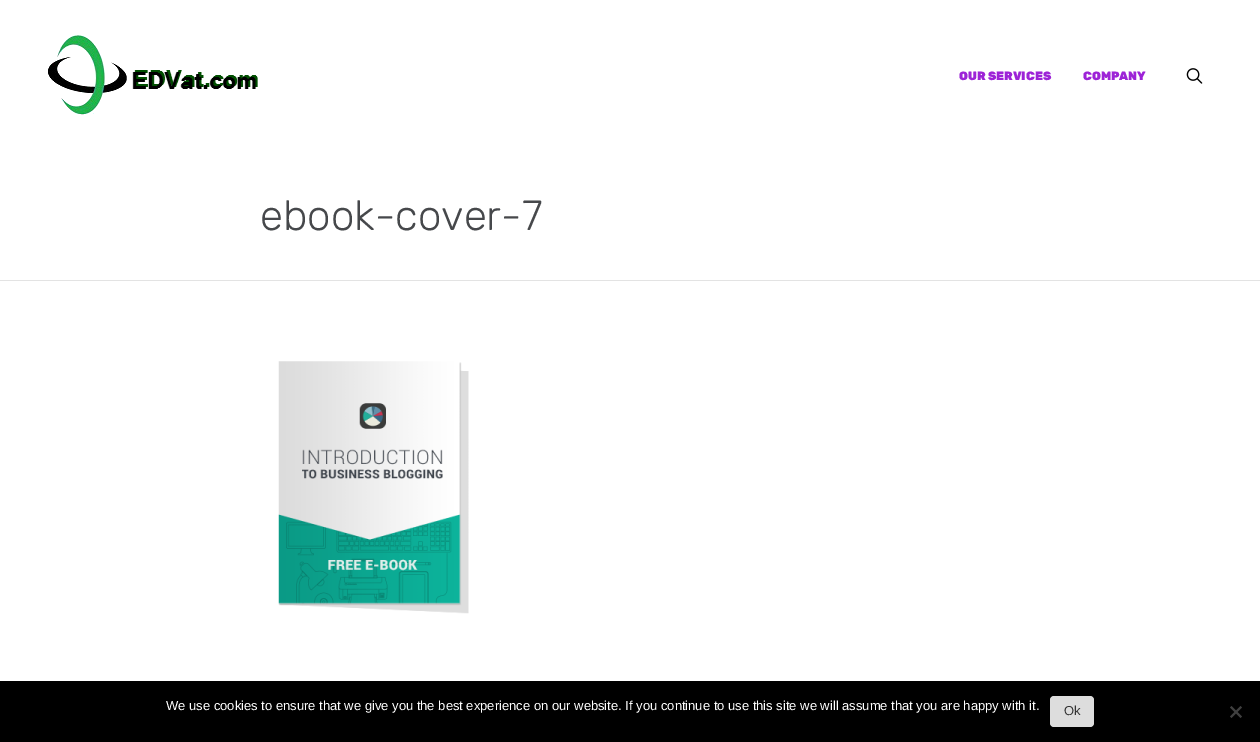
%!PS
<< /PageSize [1260 742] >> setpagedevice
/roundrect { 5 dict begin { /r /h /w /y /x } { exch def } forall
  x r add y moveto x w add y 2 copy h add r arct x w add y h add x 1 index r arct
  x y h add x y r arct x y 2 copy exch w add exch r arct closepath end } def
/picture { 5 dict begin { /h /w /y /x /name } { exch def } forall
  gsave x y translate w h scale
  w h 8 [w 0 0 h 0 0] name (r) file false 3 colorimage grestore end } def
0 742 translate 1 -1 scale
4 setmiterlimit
1 setgray
0 0 1260 742 rectfill
(img1.rgb) 48 35 210 80 picture
/Rubik-Black [12 0 0 -12 0 0] selectfont
0.616 0.137 0.843 setrgbcolor
959 80 moveto (OUR SERVICES) show
1083 80 moveto (COMPANY) show
(img2.rgb) 1186 68 17 16 picture
0.89 setgray
0 280 1260 1 rectfill
/Rubik-Light [42 0 0 -42 0 0] selectfont
0.275 0.282 0.294 setrgbcolor
260 230 moveto (ebook-cover-7) show
(img3.rgb) 278 361 191 253 picture
0 setgray
0 681 1260 61 rectfill
/LiberationSans-Regular [13 0 0 -13 0 0] selectfont
1 setgray
166 710 moveto (We use cookies to ensure that we give you the best experience on our website. If you continue to use this site we will assume that you are happy with it.) show
0.867 setgray
1050 696 44 31 4 roundrect fill
0.2 setgray
1064 715 moveto (Ok) show
0.251 setgray
newpath 1240.5 706 moveto 1242 707.5 lineto 1231.5 718 lineto 1230 716.5 lineto closepath fill
newpath 1230 707.5 moveto 1231.5 706 lineto 1242 716.5 lineto 1240.5 718 lineto closepath fill
showpage
